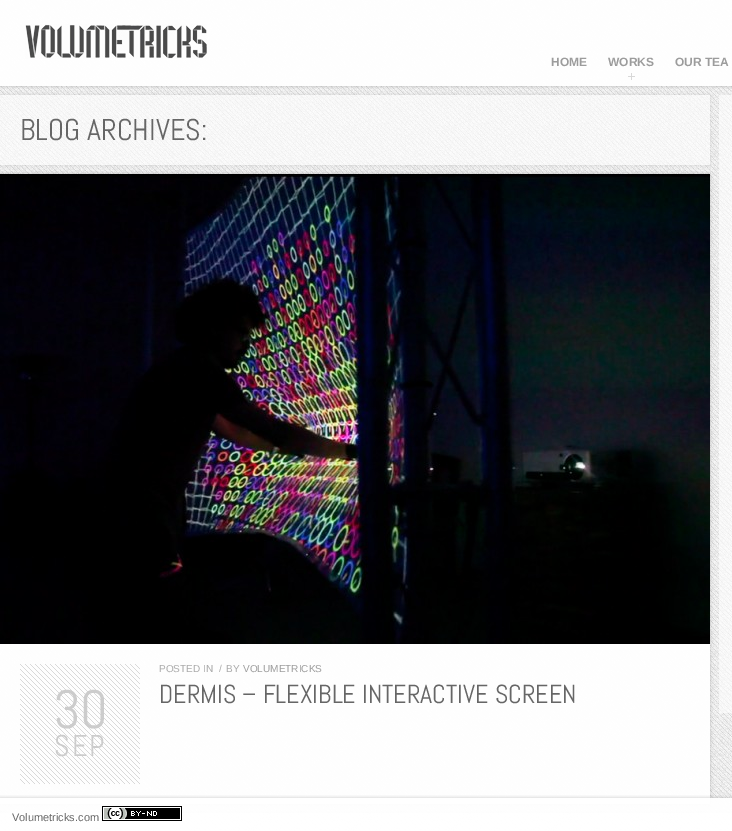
%!PS
<< /PageSize [732 831] /PageUsesTransparency true >> setpagedevice
/alpha { dup .setfillconstantalpha .setstrokeconstantalpha } def
/roundrect { 5 dict begin { /r /h /w /y /x } { exch def } forall
  x r add y moveto x w add y 2 copy h add r arct x w add y h add x 1 index r arct
  x y h add x y r arct x y 2 copy exch w add exch r arct closepath end } def
/shadow { 12 dict begin { /a /b /q /h /w /y /x } { exch def } forall gsave /was 0 def
  9 -2 -9 { dup b mul 4 div /e exch def 1 sub .425 mul 2.718 exch exp 1 add a .99 .min exch div /now exch def
    1 1 now sub 1 was sub div sub alpha /was now def
    w h .min e 2 mul add 0 gt { x e sub y e sub w e 2 mul add h e 2 mul add
      q e add b .6 mul add w h .min 2 div e add .min 0 .max roundrect fill } if } for grestore end } def
/picture { 5 dict begin { /h /w /y /x /name } { exch def } forall
  gsave x y translate w h scale
  w h 8 [w 0 0 h 0 0] name (r) file false 3 colorimage grestore end } def
0 .pushpdf14devicefilter
0 831 translate 1 -1 scale
4 setmiterlimit
1 setgray
0 0 732 831 rectfill
(img1.rgb) 0 0 732 831 picture
gsave
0 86 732 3 rectclip
0 setgray
0 0 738 86 0 2 0.2 shadow
grestore
0.95 alpha
0 0 732 86 rectfill
1 alpha
(img2.rgb) 25 24 182 35 picture
/LiberationSans-Bold [12 0 0 -12 0 0] selectfont
0.612 setgray
551 66 moveto (HOME) show
(img3.rgb) 628 73 7 7 picture
608 66 moveto (WORKS) show
675 66 moveto (OUR TEA) show
gsave
newpath 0 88 moveto 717 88 lineto 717 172 lineto 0 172 lineto closepath 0 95 moveto 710 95 lineto 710 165 lineto 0 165 lineto closepath eoclip newpath
0 setgray
0 95 710 70 0 2 0.1 shadow
grestore
0.6 alpha
1 setgray
0 95 710 70 rectfill
/Abel-Regular [30 0 0 -30 0 0] selectfont
1 alpha
0.4 setgray
20 140 moveto (BLOG ARCHIVES:) show
gsave
newpath 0 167 moveto 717 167 lineto 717 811 lineto 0 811 lineto closepath 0 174 moveto 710 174 lineto 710 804 lineto 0 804 lineto closepath eoclip newpath
0 setgray
0 174 710 630 0 2 0.2 shadow
grestore
0.95 alpha
1 setgray
0 644 710 160 rectfill
1 alpha
(img4.rgb) 0 174 710 470 picture
/LiberationSans-Regular [10 0 0 -10 0 0] selectfont
0.667 setgray
159 672 moveto (POSTED IN) show
219 672 moveto (/) show
226 672 moveto (BY) show
0.612 setgray
243 672 moveto (VOLUMETRICKS) show
/Abel-Regular [26 0 0 -26 0 0] selectfont
0.4 setgray
159 703 moveto (DERMIS – FLEXIBLE INTERACTIVE SCREEN) show
(img5.rgb) 20 664 120 120 picture
/Abel-Regular [54 0 0 -54 0 0] selectfont
0.8 setgray
53 728 moveto -1 0 (30) ashow
/Abel-Regular [30 0 0 -30 0 0] selectfont
54 756 moveto 2 0 (SEP) ashow
0.6 alpha
1 setgray
719 95 13 618 rectfill
gsave
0 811 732 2 rectclip
1 alpha
0 setgray
0 813 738 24 0 2 0.1 shadow
grestore
0 813 732 18 rectfill
gsave
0 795 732 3 rectclip
1 alpha
0 setgray
0 798 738 33 0 2 0.2 shadow
grestore
0.95 alpha
0 798 732 33 rectfill
/LiberationSans-Regular [11 0 0 -11 0 0] selectfont
1 alpha
0.4 setgray
12 821 moveto (Volumetricks.com) show
(img6.rgb) 102 806 80 15 picture
.poppdf14devicefilter showpage
